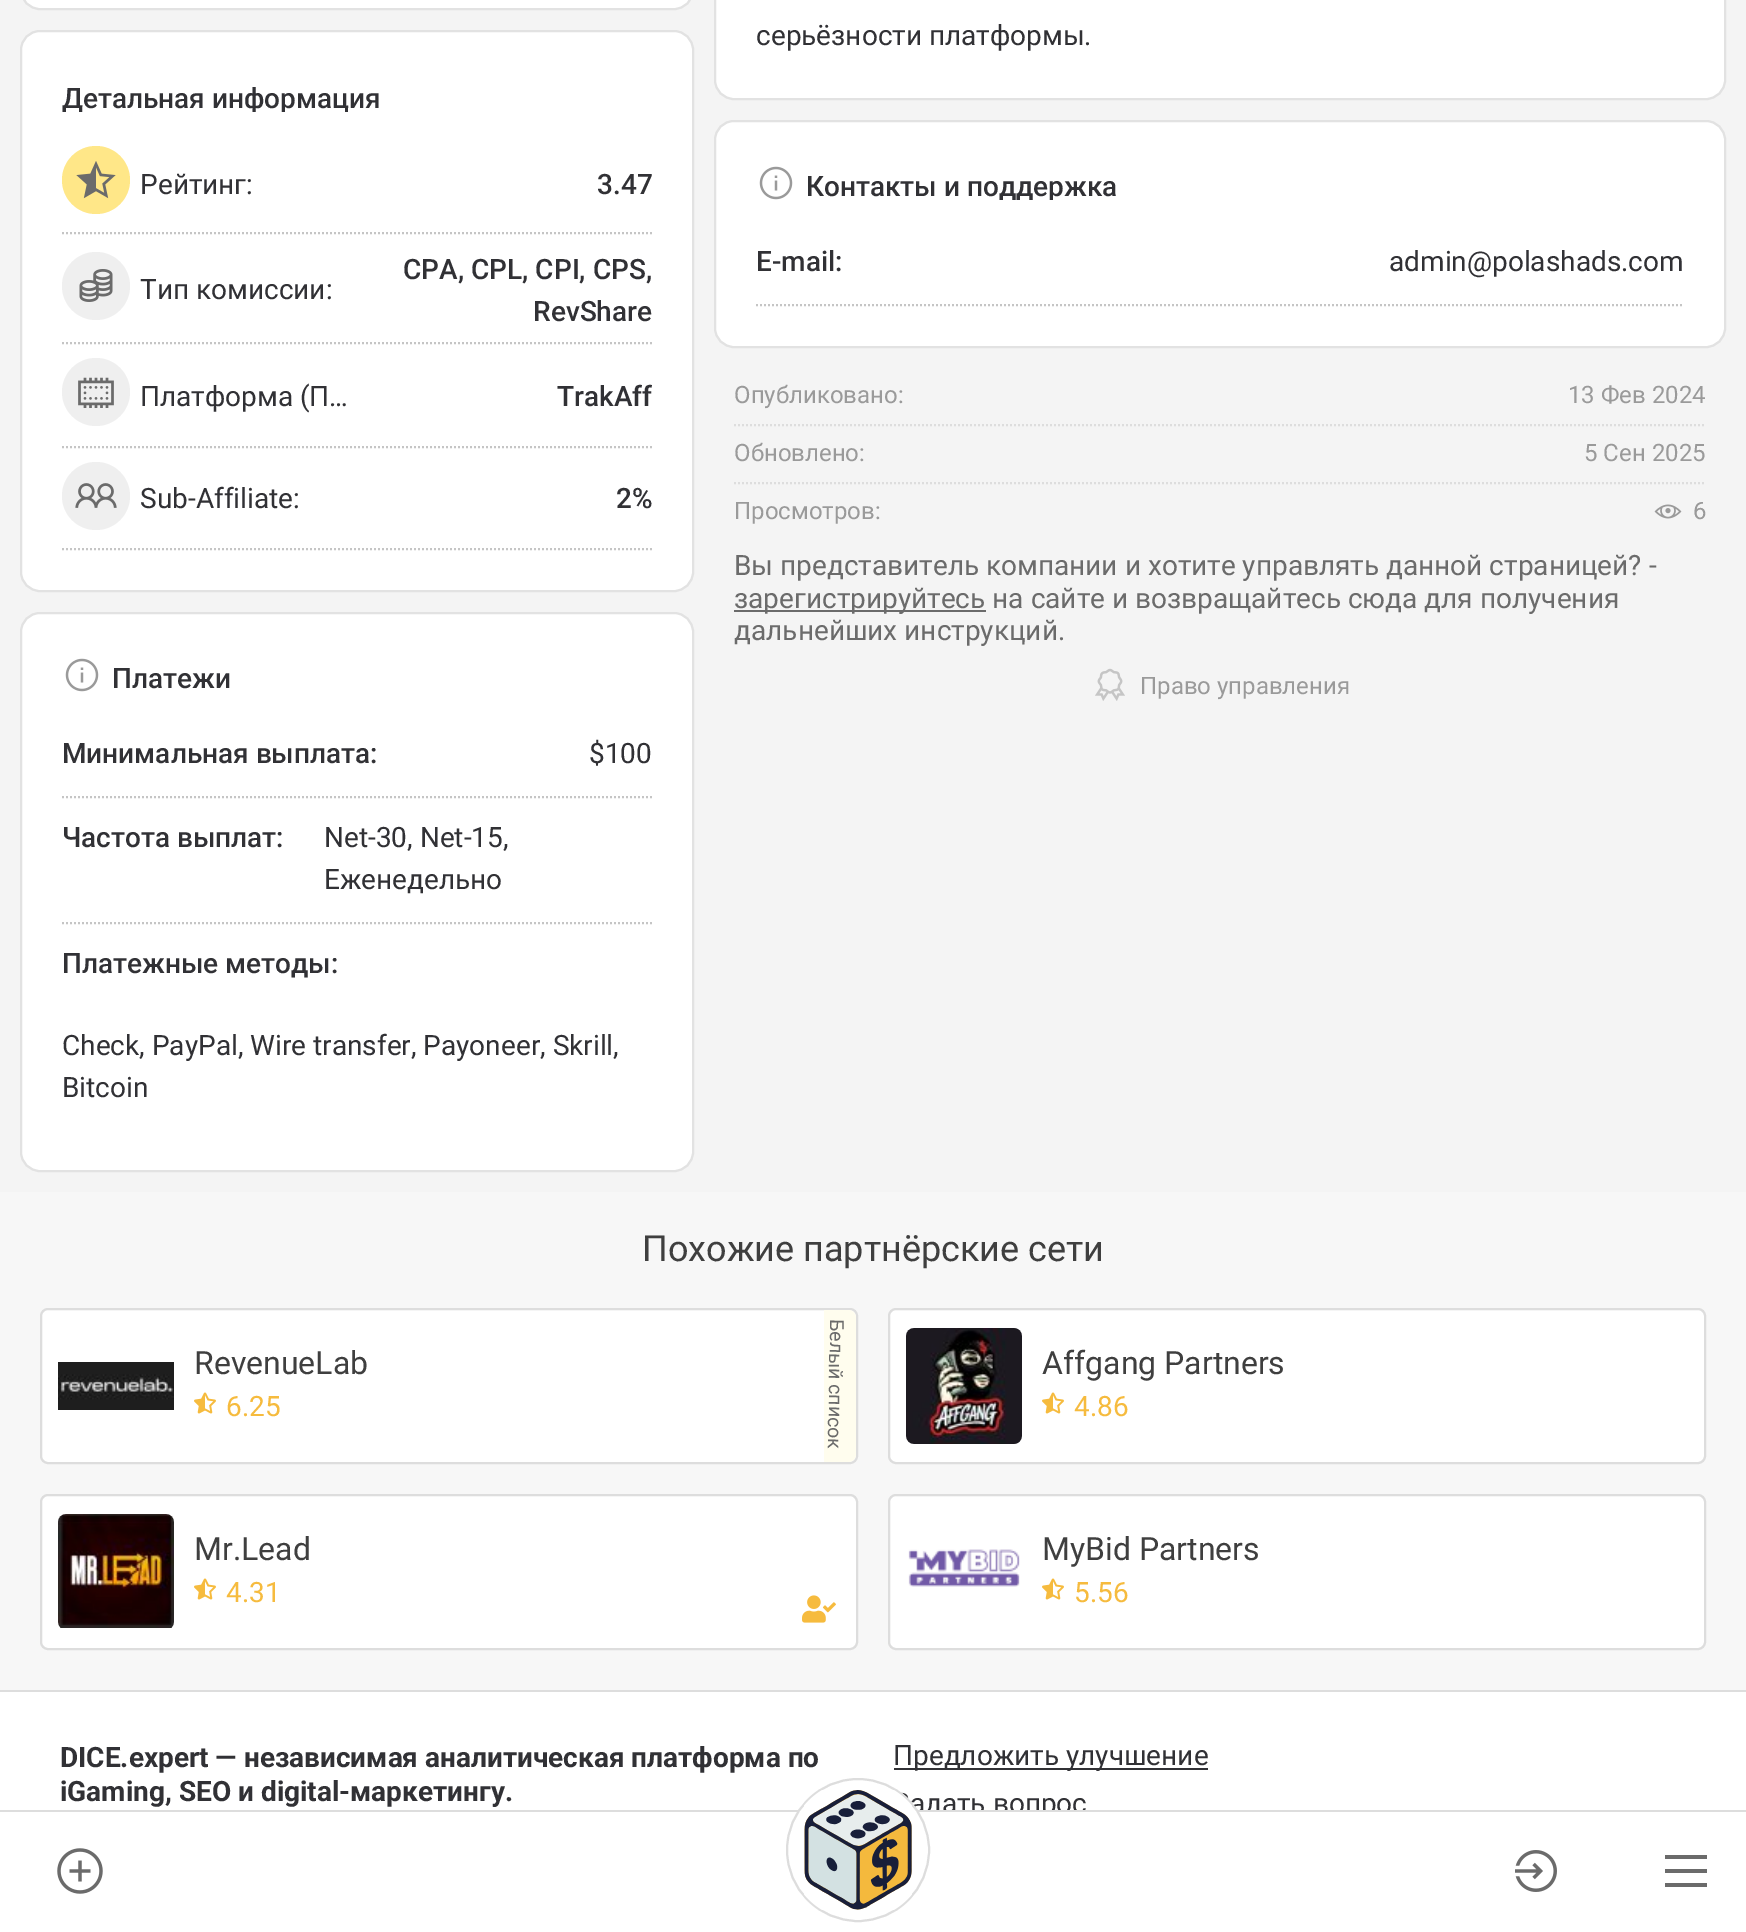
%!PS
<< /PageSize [1746 1932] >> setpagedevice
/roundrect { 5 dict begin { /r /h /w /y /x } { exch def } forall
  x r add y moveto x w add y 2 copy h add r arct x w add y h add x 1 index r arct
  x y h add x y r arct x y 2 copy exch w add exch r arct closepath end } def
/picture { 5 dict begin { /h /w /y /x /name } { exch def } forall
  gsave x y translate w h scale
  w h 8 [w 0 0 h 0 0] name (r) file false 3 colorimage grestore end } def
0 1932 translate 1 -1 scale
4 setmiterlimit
1 setgray
0 0 1746 1932 rectfill
0.957 setgray
0 0 1746 1192 rectfill
1 setgray
21 -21 672 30 19 roundrect gsave fill grestore
0.886 setgray
2 setlinewidth
stroke
1 setgray
21 31 672 560 19 roundrect gsave fill grestore
0.886 setgray
stroke
gsave
62 84 590 28 rectclip
/Roboto-Medium [28 0 0 -28 0 0] selectfont
0.192 0.192 0.208 setrgbcolor
62 108 moveto (Детальная информация) show
grestore
0.773 setgray
[2 2] 0 setdash
newpath 62 233 moveto 652 233 lineto stroke
1 0.906 0.533 setrgbcolor
newpath 96 180 34 0 360 arc closepath fill
(img1.rgb) 76 161 40 38 picture
/Roboto-Regular [28 0 0 -28 0 0] selectfont
0.192 0.192 0.208 setrgbcolor
140 194 moveto (Рейтинг:) show
/Roboto-Medium [28 0 0 -28 0 0] selectfont
597 194 moveto (3.47) show
0.773 setgray
newpath 62 343 moveto 652 343 lineto stroke
0.937 setgray
newpath 96 286 34 0 360 arc closepath fill
(img2.rgb) 79 269 34 33 picture
/Roboto-Regular [28 0 0 -28 0 0] selectfont
0.192 0.192 0.208 setrgbcolor
140 299 moveto (Тип комиссии:) show
/Roboto-Medium [28 0 0 -28 0 0] selectfont
403 279 moveto (CPA, CPL, CPI, CPS,) show
533 321 moveto (RevShare) show
0.773 setgray
newpath 62 447 moveto 652 447 lineto stroke
0.937 setgray
newpath 96 392 34 0 360 arc closepath fill
(img3.rgb) 78 377 36 31 picture
/Roboto-Regular [28 0 0 -28 0 0] selectfont
0.192 0.192 0.208 setrgbcolor
140 406 moveto (Платформа \(П…) show
/Roboto-Medium [28 0 0 -28 0 0] selectfont
557 406 moveto (TrakAff) show
0.773 setgray
newpath 62 549 moveto 652 549 lineto stroke
0.937 setgray
newpath 96 496 34 0 360 arc closepath fill
(img4.rgb) 75 483 42 25 picture
/Roboto-Regular [28 0 0 -28 0 0] selectfont
0.192 0.192 0.208 setrgbcolor
140 508 moveto (Sub-Affiliate:) show
/Roboto-Medium [28 0 0 -28 0 0] selectfont
616 508 moveto (2%) show
1 setgray
21 613 672 558 19 roundrect gsave fill grestore
0.886 setgray
[] 0 setdash
stroke
(img5.rgb) 65 658 34 34 picture
0.192 0.192 0.208 setrgbcolor
112 688 moveto (Платежи) show
0.773 setgray
[2 2] 0 setdash
newpath 62 797 moveto 652 797 lineto stroke
0.192 0.192 0.208 setrgbcolor
62 763 moveto (Минимальная выплата:) show
/Roboto-Regular [28 0 0 -28 0 0] selectfont
589 763 moveto ($100) show
0.773 setgray
newpath 62 923 moveto 652 923 lineto stroke
/Roboto-Medium [28 0 0 -28 0 0] selectfont
0.192 0.192 0.208 setrgbcolor
62 847 moveto (Частота выплат:) show
/Roboto-Regular [28 0 0 -28 0 0] selectfont
324 847 moveto (Net-30, Net-15,) show
324 889 moveto (Еженедельно) show
/Roboto-Medium [28 0 0 -28 0 0] selectfont
62 973 moveto (Платежные методы:) show
/Roboto-Regular [28 0 0 -28 0 0] selectfont
62 1055 moveto (Check, PayPal, Wire transfer, Payoneer, Skrill,) show
62 1097 moveto (Bitcoin) show
1 setgray
715 -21 1010 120 19 roundrect gsave fill grestore
0.886 setgray
[] 0 setdash
stroke
0.192 0.192 0.208 setrgbcolor
756 45 moveto (серьёзности платформы.) show
1 setgray
715 121 1010 226 19 roundrect gsave fill grestore
0.886 setgray
stroke
(img5.rgb) 759 166 34 34 picture
gsave
806 172 878 28 rectclip
/Roboto-Medium [28 0 0 -28 0 0] selectfont
0.192 0.192 0.208 setrgbcolor
806 196 moveto (Контакты и поддержка) show
grestore
0.773 setgray
[2 2] 0 setdash
newpath 756 305 moveto 1684 305 lineto stroke
/Roboto-Medium [28 0 0 -28 0 0] selectfont
0.192 0.192 0.208 setrgbcolor
756 271 moveto (E-mail:) show
/Roboto-Regular [28 0 0 -28 0 0] selectfont
1389 271 moveto (admin@polashads.com) show
0.867 setgray
newpath 734 425 moveto 1706 425 lineto stroke
/Roboto-Regular [24 0 0 -24 0 0] selectfont
0.604 setgray
734 403 moveto (Опубликовано:) show
1568 403 moveto (13 Фев 2024) show
0.867 setgray
newpath 734 483 moveto 1706 483 lineto stroke
0.604 setgray
734 461 moveto (Обновлено:) show
1584 461 moveto (5 Сен 2025) show
734 519 moveto (Просмотров:) show
(img6.rgb) 1654 504 28 15 picture
1693 519 moveto (6) show
/Roboto-Regular [28 0 0 -28 0 0] selectfont
0.42 setgray
734 575 moveto (Вы представитель компании и хотите управлять данной страницей? -) show
734 610 252 2 rectfill
734 608 moveto (зарегистрируйтесь на сайте и возвращайтесь сюда для получения) show
734 640 moveto (дальнейших инструкций.) show
(img7.rgb) 1095 668 30 33 picture
/Roboto-Regular [24 0 0 -24 0 0] selectfont
0.604 setgray
1140 694 moveto (Право управления) show
0.969 setgray
0 1192 1746 498 rectfill
/Roboto-Regular [36 0 0 -36 0 0] selectfont
0.247 setgray
642 1261 moveto (Похожие партнёрские сети) show
1 setgray
41 1309 816 154 7 roundrect gsave fill grestore
0.867 setgray
[] 0 setdash
stroke
(img8.rgb) 58 1362 116 48 picture
/Roboto-Regular [32 0 0 -32 0 0] selectfont
0.247 setgray
194 1374 moveto (RevenueLab) show
(img9.rgb) 194 1392 22 22 picture
/Roboto-Regular [28 0 0 -28 0 0] selectfont
0.965 0.733 0.243 setrgbcolor
226 1416 moveto (6.25) show
1 0.992 0.933 setrgbcolor
newpath 824 1310 moveto 848 1310 lineto 852.5 1310 856 1313.5 856 1318 curveto 856 1454 lineto 856 1458.5 852.5 1462 848 1462 curveto 824 1462 lineto closepath fill
/Roboto-Regular [19.5 0 0 -19.5 0 0] selectfont
0.42 setgray
gsave 830 1319 translate 91 rotate 0 0 moveto (Белый список) show grestore
1 setgray
889 1309 816 154 7 roundrect gsave fill grestore
0.867 setgray
stroke
(img10.rgb) 906 1328 116 116 picture
/Roboto-Regular [32 0 0 -32 0 0] selectfont
0.247 setgray
1042 1374 moveto (Affgang Partners) show
(img9.rgb) 1042 1392 22 22 picture
/Roboto-Regular [28 0 0 -28 0 0] selectfont
0.965 0.733 0.243 setrgbcolor
1074 1416 moveto (4.86) show
1 setgray
41 1495 816 154 7 roundrect gsave fill grestore
0.867 setgray
stroke
(img11.rgb) 58 1514 116 114 picture
/Roboto-Regular [32 0 0 -32 0 0] selectfont
0.247 setgray
194 1560 moveto (Mr.Lead) show
(img9.rgb) 194 1578 22 22 picture
/Roboto-Regular [28 0 0 -28 0 0] selectfont
0.965 0.733 0.243 setrgbcolor
226 1602 moveto (4.31) show
(img12.rgb) 802 1595 34 28 picture
1 setgray
889 1495 816 154 7 roundrect gsave fill grestore
0.867 setgray
stroke
(img13.rgb) 908 1549 112 38 picture
/Roboto-Regular [32 0 0 -32 0 0] selectfont
0.247 setgray
1042 1560 moveto (MyBid Partners) show
(img9.rgb) 1042 1578 22 22 picture
/Roboto-Regular [28 0 0 -28 0 0] selectfont
0.965 0.733 0.243 setrgbcolor
1074 1602 moveto (5.56) show
0.867 setgray
0 1690 1746 2 rectfill
/Roboto-Bold [28 0 0 -28 0 0] selectfont
0.192 0.192 0.208 setrgbcolor
60 1767 moveto (DICE.expert — независимая аналитическая платформа по) show
60 1801 moveto (iGaming, SEO и digital-маркетингу.) show
894 1768 314 2 rectfill
/Roboto-Regular [28 0 0 -28 0 0] selectfont
893 1765 moveto (Предложить улучшение) show
893 1813 moveto (Задать вопрос) show
1 setgray
896 1812 188 7 rectfill
0.867 setgray
0 1810 1746 2 rectfill
(img14.rgb) 57 1848 46 46 picture
1 setgray
newpath 858 1850 71 0 360 arc closepath gsave fill grestore
0.867 setgray
stroke
(img15.rgb) 804 1790 108 120 picture
(img16.rgb) 1515 1850 42 42 picture
0.42 setgray
newpath 1665 1855 moveto 1665 1859 lineto 1707 1859 lineto 1707 1855 lineto closepath 1665 1869 moveto 1665 1873 lineto 1707 1873 lineto 1707 1869 lineto closepath 1665 1883 moveto 1665 1887 lineto 1707 1887 lineto 1707 1883 lineto closepath fill
showpage
